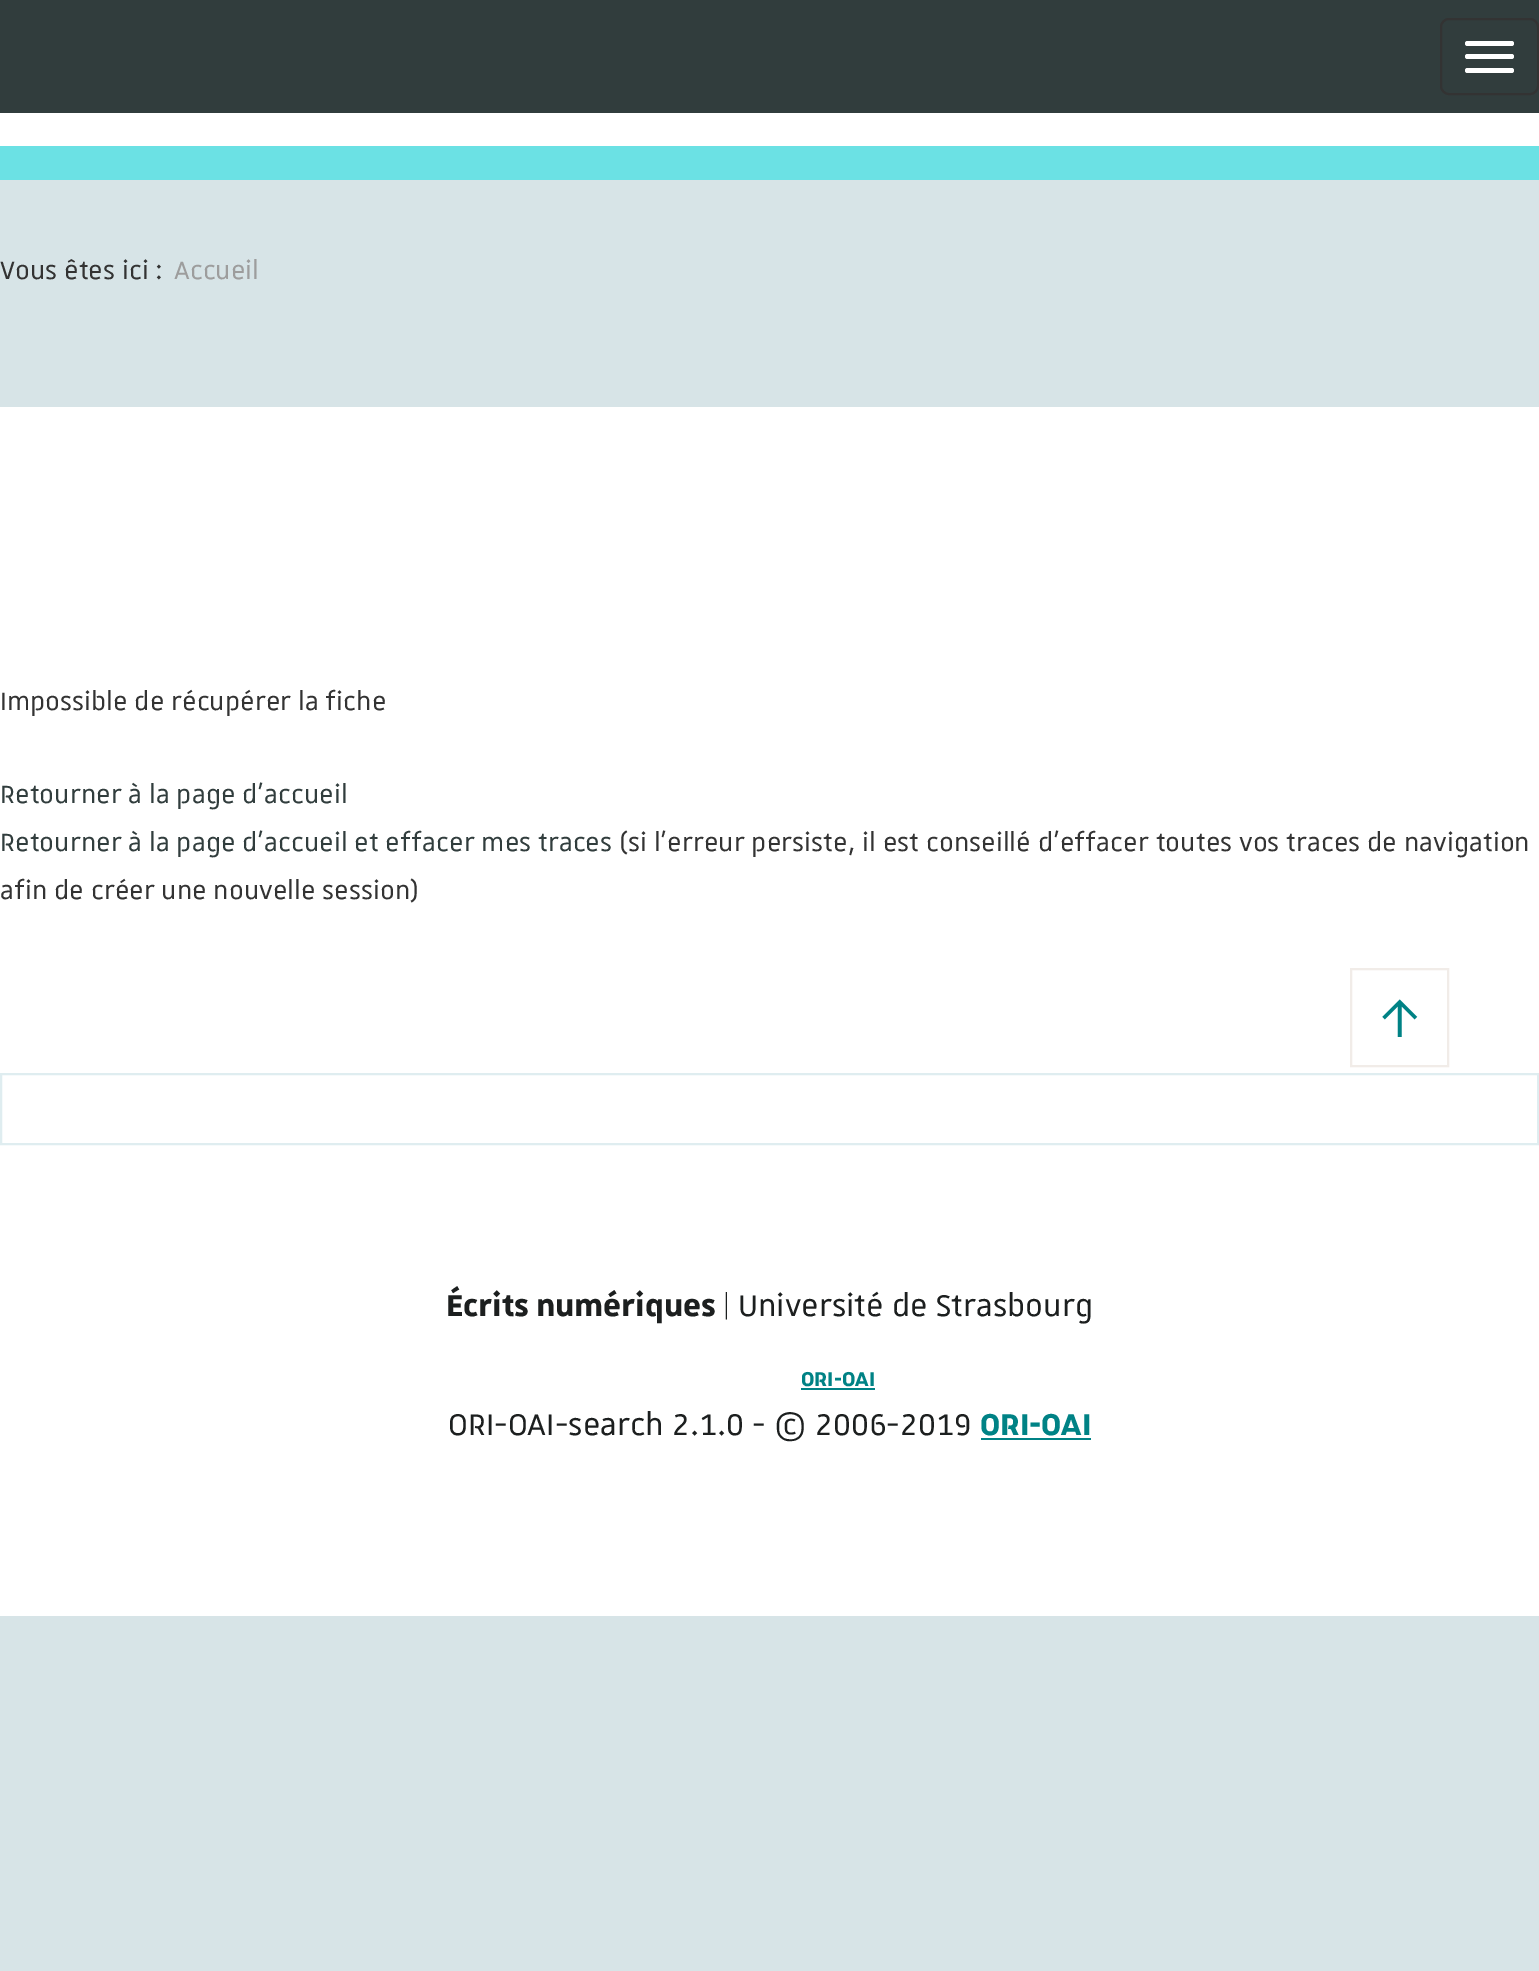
%!PS
<< /PageSize [1539 1971] >> setpagedevice
/roundrect { 5 dict begin { /r /h /w /y /x } { exch def } forall
  x r add y moveto x w add y 2 copy h add r arct x w add y h add x 1 index r arct
  x y h add x y r arct x y 2 copy exch w add exch r arct closepath end } def
0 1971 translate 1 -1 scale
4 setmiterlimit
0.843 0.894 0.906 setrgbcolor
0 0 1539 1971 rectfill
0.192 0.239 0.239 setrgbcolor
0 0 1539 113 rectfill
0.2 setgray
2 setlinewidth
1441 19 97 75 8 roundrect stroke
1 setgray
1465 41 49 5 2.5 roundrect fill
1465 54 49 5 2.5 roundrect fill
1465 68 49 5 2.5 roundrect fill
0.42 0.882 0.894 setrgbcolor
0 146 1539 34 rectfill
1 setgray
0 113 1539 33 rectfill
/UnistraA-Regular [33.75 0 0 -33.75 0 0] selectfont
0.2 setgray
0 279 moveto (Vous êtes ici :) show
0.616 setgray
174 279 moveto (Accueil) show
1 setgray
0 407 1539 666 rectfill
0.2 setgray
0 710 moveto (Impossible de récupérer la fiche) show
0.192 0.239 0.239 setrgbcolor
0 803 moveto (Retourner à la page d'accueil) show
0 851 moveto (Retourner à la page d'accueil et effacer mes traces) show
0.2 setgray
619 851 moveto (\(si l'erreur persiste, il est conseillé d'effacer toutes vos traces de navigation) show
0 899 moveto (afin de créer une nouvelle session\)) show
1 setgray
0 1145 1539 471 rectfill
0.945 0.925 0.91 setrgbcolor
1351 969 97 97 rectstroke
/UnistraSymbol-Regular [68 0 0 -68 0 0] selectfont
0 0.51 0.522 setrgbcolor
1378 1037 moveto (2) show
/UnistraA-Bold [40.5 0 0 -40.5 0 0] selectfont
0.11 0.122 0.122 setrgbcolor
446 1316 moveto (Écrits numériques) show
/UnistraA-Regular [40.5 0 0 -40.5 0 0] selectfont
723 1316 moveto (| Université de Strasbourg) show
/UnistraA-Bold [27 0 0 -27 0 0] selectfont
0 0.51 0.522 setrgbcolor
801 1386 moveto (ORI-OAI) show
801 1388 74 2 rectfill
/UnistraA-Regular [40.5 0 0 -40.5 0 0] selectfont
0.11 0.122 0.122 setrgbcolor
448 1435 moveto (ORI-OAI-search 2.1.0 - © 2006-2019) show
/UnistraA-Bold [40.5 0 0 -40.5 0 0] selectfont
0 0.51 0.522 setrgbcolor
980 1435 moveto (ORI-OAI) show
981 1438 110 2 rectfill
1 setgray
newpath 1 1074 moveto 1538 1074 lineto 1538 1144 lineto 1 1144 lineto closepath gsave fill grestore
0.875 0.929 0.941 setrgbcolor
stroke
showpage
